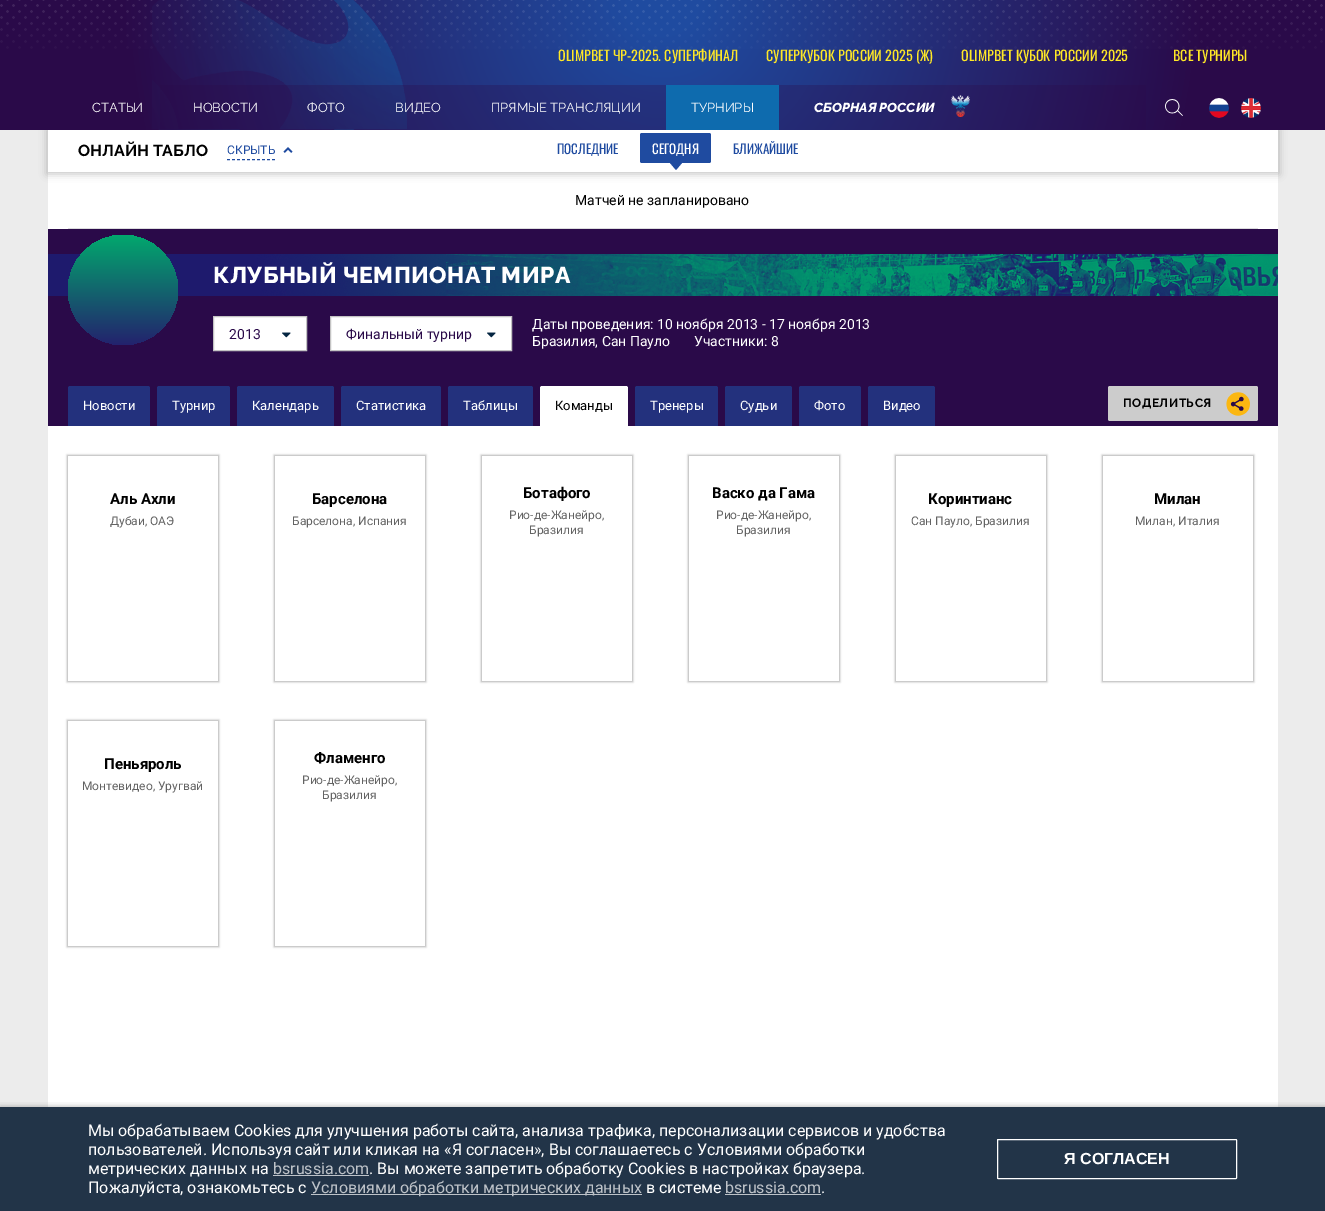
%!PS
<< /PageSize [1325 1211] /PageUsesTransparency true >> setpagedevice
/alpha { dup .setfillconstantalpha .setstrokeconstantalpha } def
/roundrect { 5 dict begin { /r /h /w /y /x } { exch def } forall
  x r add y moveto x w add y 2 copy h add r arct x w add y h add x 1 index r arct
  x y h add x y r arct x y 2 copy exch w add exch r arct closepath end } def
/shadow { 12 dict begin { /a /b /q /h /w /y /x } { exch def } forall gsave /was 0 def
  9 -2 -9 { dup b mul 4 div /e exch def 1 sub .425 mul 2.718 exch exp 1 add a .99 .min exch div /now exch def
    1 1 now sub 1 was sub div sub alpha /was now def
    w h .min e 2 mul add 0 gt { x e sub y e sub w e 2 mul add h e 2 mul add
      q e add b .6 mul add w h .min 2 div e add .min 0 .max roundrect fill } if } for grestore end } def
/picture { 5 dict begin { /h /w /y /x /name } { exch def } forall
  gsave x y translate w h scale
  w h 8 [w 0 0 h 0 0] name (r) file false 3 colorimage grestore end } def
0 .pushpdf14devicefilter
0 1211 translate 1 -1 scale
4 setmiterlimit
0.925 setgray
0 0 1325 1211 rectfill
1 setgray
48 130 1230 99 rectfill
gsave
newpath 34 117 moveto 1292 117 lineto 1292 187 lineto 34 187 lineto closepath 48 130 moveto 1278 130 lineto 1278 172 lineto 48 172 lineto closepath eoclip newpath
0 setgray
47 130 1232 44 0 4 0.23 shadow
grestore
gsave newpath 0 0 moveto 1325 0 lineto 1325 130 lineto 0 130 lineto closepath clip newpath 663 0 translate 675 675 scale
<< /ShadingType 3 /ColorSpace /DeviceRGB /Coords [0 0 0 0 0 1] /Extend [true true] /Function << /FunctionType 3 /Domain [0 1] /Functions [<< /FunctionType 2 /Domain [0 1] /C0 [0.122 0.294 0.627] /C1 [0.122 0.294 0.627] /N 1 >> << /FunctionType 2 /Domain [0 1] /C0 [0.122 0.294 0.627] /C1 [0.165 0.039 0.286] /N 1 >> << /FunctionType 2 /Domain [0 1] /C0 [0.165 0.039 0.286] /C1 [0.165 0.039 0.286] /N 1 >>] /Bounds [0.05 0.8] /Encode [0 1 0 1 0 1] >> >> shfill grestore
(img2.rgb) 152 0 255 130 picture
(img1.rgb) 0 0 1323 49 picture
/Oswald-Regular [14 0 0 -14 0 0] selectfont
1 0.91 0.149 setrgbcolor
558 61 moveto (OLIMPBET ЧР-2025. СУПЕРФИНАЛ) show
766 61 moveto (СУПЕРКУБОК РОССИИ 2025 \(Ж\)) show
961 61 moveto (OLIMPBET КУБОК РОССИИ 2025) show
1173 61 moveto (ВСЕ ТУРНИРЫ) show
0.3 alpha
0.165 0.039 0.286 setrgbcolor
160 85 986 45 rectfill
/Raleway-Regular [13 0 0 -13 0 0] selectfont
1 alpha
1 setgray
92 112 moveto (СТАТЬИ) show
193 112 moveto (НОВОСТИ) show
307 112 moveto (ФОТО) show
395 112 moveto (ВИДЕО) show
491 112 moveto (ПРЯМЫЕ ТРАНСЛЯЦИИ) show
0.055 0.42 0.682 setrgbcolor
666 85 113 45 rectfill
1 setgray
691 112 moveto (ТУРНИРЫ) show
/Raleway-ExtraBoldItalic [13 0 0 -13 0 0] selectfont
814 112 moveto (СБОРНАЯ РОССИИ) show
(img3.rgb) 951 95 19 22 picture
(img4.rgb) 1165 99 18 17 picture
(img5.rgb) 1209 98 20 20 picture
(img6.rgb) 1241 98 20 20 picture
/Raleway-Bold [16 0 0 -16 0 0] selectfont
0 setgray
78 156 moveto (ОНЛАЙН ТАБЛО) show
/Roboto-Regular [12 0 0 -12 0 0] selectfont
0.122 0.294 0.627 setrgbcolor
227 154 moveto (СКРЫТЬ) show
(img7.rgb) 283 147 10 6 picture
[3 2] 0 setdash
newpath 227 159.5 moveto 275 159.5 lineto stroke
/Oswald-Regular [13 0 0 -13 0 0] selectfont
557 154 moveto (ПОСЛЕДНИЕ) show
640 133 71 30 2 roundrect fill
1 setgray
652 154 moveto (СЕГОДНЯ) show
0.122 0.294 0.627 setrgbcolor
newpath 670 163 moveto 682 163 lineto 676 170 lineto closepath fill
733 154 moveto (БЛИЖАЙШИЕ) show
/Roboto-Regular [14 0 0 -14 0 0] selectfont
0 setgray
575 205 moveto (Матчей не запланировано) show
0.863 0.863 0.871 setrgbcolor
68 228 1190 1 rectfill
0.165 0.039 0.286 setrgbcolor
48 229 1230 197 rectfill
(img8.rgb) 48 254 1230 42 picture
gsave newpath 123 290 55 0 360 arc closepath clip newpath
<< /ShadingType 2 /ColorSpace /DeviceRGB /Coords [123 235 123 345] /Extend [true true] /Function << /FunctionType 2 /Domain [0 1] /C0 [0.008 0.659 0.427] /C1 [0.137 0.133 0.427] /N 1 >> >> shfill grestore
/Raleway-ExtraBold [23 0 0 -23 0 0] selectfont
1 setgray
213 283 moveto 0.5 0 (КЛУБНЫЙ ЧЕМПИОНАТ МИРА) ashow
newpath 213.5 316.5 moveto 306.5 316.5 lineto 306.5 350.5 lineto 213.5 350.5 lineto closepath gsave fill grestore
0.765 setgray
[] 0 setdash
stroke
/Roboto-Regular [14 0 0 -14 0 0] selectfont
0.165 0.039 0.286 setrgbcolor
229 339 moveto (2013) show
(img9.rgb) 282 332 9 6 picture
1 setgray
newpath 330.5 316.5 moveto 511.5 316.5 lineto 511.5 350.5 lineto 330.5 350.5 lineto closepath gsave fill grestore
0.765 setgray
stroke
0.165 0.039 0.286 setrgbcolor
346 339 moveto (Финальный турнир) show
(img9.rgb) 487 332 9 6 picture
1 setgray
532 329 moveto (Даты проведения: 10 ноября 2013 - 17 ноября 2013) show
532 346 moveto (Бразилия, Сан Пауло) show
694 346 moveto (Участники: 8) show
0.137 0.192 0.49 setrgbcolor
newpath 70 386 moveto 148 386 lineto 149 386 150 387 150 388 curveto 150 426 lineto 68 426 lineto 68 388 lineto 68 387 69 386 70 386 curveto closepath fill
/Roboto-Regular [13 0 0 -13 0 0] selectfont
1 setgray
83 410 moveto (Новости) show
0.137 0.192 0.49 setrgbcolor
newpath 159 386 moveto 228 386 lineto 229 386 230 387 230 388 curveto 230 426 lineto 157 426 lineto 157 388 lineto 157 387 158 386 159 386 curveto closepath fill
1 setgray
172 410 moveto (Турнир) show
0.137 0.192 0.49 setrgbcolor
newpath 239 386 moveto 332 386 lineto 333 386 334 387 334 388 curveto 334 426 lineto 237 426 lineto 237 388 lineto 237 387 238 386 239 386 curveto closepath fill
1 setgray
252 410 moveto (Календарь) show
0.137 0.192 0.49 setrgbcolor
newpath 343 386 moveto 439 386 lineto 440 386 441 387 441 388 curveto 441 426 lineto 341 426 lineto 341 388 lineto 341 387 342 386 343 386 curveto closepath fill
1 setgray
356 410 moveto (Статистика) show
0.137 0.192 0.49 setrgbcolor
newpath 450 386 moveto 531 386 lineto 532 386 533 387 533 388 curveto 533 426 lineto 448 426 lineto 448 388 lineto 448 387 449 386 450 386 curveto closepath fill
1 setgray
463 410 moveto (Таблицы) show
newpath 542 386 moveto 626 386 lineto 627 386 628 387 628 388 curveto 628 426 lineto 540 426 lineto 540 388 lineto 540 387 541 386 542 386 curveto closepath fill
0 setgray
555 410 moveto (Команды) show
0.137 0.192 0.49 setrgbcolor
newpath 637 386 moveto 716 386 lineto 717 386 718 387 718 388 curveto 718 426 lineto 635 426 lineto 635 388 lineto 635 387 636 386 637 386 curveto closepath fill
1 setgray
650 410 moveto (Тренеры) show
0.137 0.192 0.49 setrgbcolor
newpath 727 386 moveto 790 386 lineto 791 386 792 387 792 388 curveto 792 426 lineto 725 426 lineto 725 388 lineto 725 387 726 386 727 386 curveto closepath fill
1 setgray
740 410 moveto (Судьи) show
0.137 0.192 0.49 setrgbcolor
newpath 801 386 moveto 859 386 lineto 860 386 861 387 861 388 curveto 861 426 lineto 799 426 lineto 799 388 lineto 799 387 800 386 801 386 curveto closepath fill
1 setgray
814 410 moveto (Фото) show
0.137 0.192 0.49 setrgbcolor
newpath 870 386 moveto 933 386 lineto 934 386 935 387 935 388 curveto 935 426 lineto 868 426 lineto 868 388 lineto 868 387 869 386 870 386 curveto closepath fill
1 setgray
883 410 moveto (Видео) show
0.8 setgray
1108 386 150 35 2 roundrect fill
/Raleway-Bold [12 0 0 -12 0 0] selectfont
0 setgray
1123 407 moveto 0.5 0 (ПОДЕЛИТЬСЯ) ashow
(img10.rgb) 1226 392 24 24 picture
1 setgray
48 426 1230 681 rectfill
gsave
newpath 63 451 moveto 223 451 lineto 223 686 lineto 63 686 lineto closepath 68 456 moveto 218 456 lineto 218 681 lineto 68 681 lineto closepath eoclip newpath
0 setgray
67 455 152 227 0 1 0.3 shadow
grestore
/Roboto-Bold [15 0 0 -15 0 0] selectfont
0 setgray
110 504 moveto (Аль Ахли) show
/Roboto-Regular [12 0 0 -12 0 0] selectfont
0.388 setgray
110 525 moveto (Дубаи, ОАЭ) show
gsave
newpath 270 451 moveto 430 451 lineto 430 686 lineto 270 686 lineto closepath 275 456 moveto 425 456 lineto 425 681 lineto 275 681 lineto closepath eoclip newpath
0 setgray
274 455 152 227 0 1 0.3 shadow
grestore
/Roboto-Bold [15 0 0 -15 0 0] selectfont
0 setgray
312 504 moveto (Барселона) show
/Roboto-Regular [12 0 0 -12 0 0] selectfont
0.388 setgray
292 525 moveto (Барселона, Испания) show
gsave
newpath 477 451 moveto 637 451 lineto 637 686 lineto 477 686 lineto closepath 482 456 moveto 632 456 lineto 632 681 lineto 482 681 lineto closepath eoclip newpath
0 setgray
481 455 152 227 0 1 0.3 shadow
grestore
/Roboto-Bold [15 0 0 -15 0 0] selectfont
0 setgray
523 498 moveto (Ботафого) show
/Roboto-Regular [12 0 0 -12 0 0] selectfont
0.388 setgray
509 519 moveto (Рио-де-Жанейро,) show
529 534 moveto (Бразилия) show
gsave
newpath 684 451 moveto 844 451 lineto 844 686 lineto 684 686 lineto closepath 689 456 moveto 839 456 lineto 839 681 lineto 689 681 lineto closepath eoclip newpath
0 setgray
688 455 152 227 0 1 0.3 shadow
grestore
/Roboto-Bold [15 0 0 -15 0 0] selectfont
0 setgray
712 498 moveto (Васко да Гама) show
/Roboto-Regular [12 0 0 -12 0 0] selectfont
0.388 setgray
716 519 moveto (Рио-де-Жанейро,) show
736 534 moveto (Бразилия) show
gsave
newpath 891 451 moveto 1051 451 lineto 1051 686 lineto 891 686 lineto closepath 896 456 moveto 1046 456 lineto 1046 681 lineto 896 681 lineto closepath eoclip newpath
0 setgray
895 455 152 227 0 1 0.3 shadow
grestore
/Roboto-Bold [15 0 0 -15 0 0] selectfont
0 setgray
928 504 moveto (Коринтианс) show
/Roboto-Regular [12 0 0 -12 0 0] selectfont
0.388 setgray
911 525 moveto (Сан Пауло, Бразилия) show
gsave
newpath 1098 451 moveto 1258 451 lineto 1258 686 lineto 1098 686 lineto closepath 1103 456 moveto 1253 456 lineto 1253 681 lineto 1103 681 lineto closepath eoclip newpath
0 setgray
1102 455 152 227 0 1 0.3 shadow
grestore
/Roboto-Bold [15 0 0 -15 0 0] selectfont
0 setgray
1154 504 moveto (Милан) show
/Roboto-Regular [12 0 0 -12 0 0] selectfont
0.388 setgray
1135 525 moveto (Милан, Италия) show
gsave
newpath 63 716 moveto 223 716 lineto 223 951 lineto 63 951 lineto closepath 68 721 moveto 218 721 lineto 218 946 lineto 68 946 lineto closepath eoclip newpath
0 setgray
67 720 152 227 0 1 0.3 shadow
grestore
/Roboto-Bold [15 0 0 -15 0 0] selectfont
0 setgray
104 769 moveto (Пеньяроль) show
/Roboto-Regular [12 0 0 -12 0 0] selectfont
0.388 setgray
82 790 moveto (Монтевидео, Уругвай) show
gsave
newpath 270 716 moveto 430 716 lineto 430 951 lineto 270 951 lineto closepath 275 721 moveto 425 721 lineto 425 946 lineto 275 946 lineto closepath eoclip newpath
0 setgray
274 720 152 227 0 1 0.3 shadow
grestore
/Roboto-Bold [15 0 0 -15 0 0] selectfont
0 setgray
314 763 moveto (Фламенго) show
/Roboto-Regular [12 0 0 -12 0 0] selectfont
0.388 setgray
302 784 moveto (Рио-де-Жанейро,) show
322 799 moveto (Бразилия) show
0 setgray
0 1110 1325 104 0 3.5 0.9 shadow
0.133 0.204 0.282 setrgbcolor
0 1107 1325 104 rectfill
/Roboto-Regular [16 0 0 -16 0 0] selectfont
1 setgray
88 1136 moveto (Мы обрабатываем Cookies для улучшения работы сайта, анализа трафика, персонализации сервисов и удобства) show
88 1155 moveto (пользователей. Используя сайт или кликая на «Я согласен», Вы соглашаетесь с Условиями обработки) show
88 1174 moveto (метрических данных на) show
0.741 0.761 0.784 setrgbcolor
273 1174 moveto (bsrussia.com) show
273 1175 96 1 rectfill
1 setgray
369 1174 moveto (. Вы можете запретить обработку Cookies в настройках браузера.) show
88 1193 moveto (Пожалуйста, ознакомьтесь с) show
0.741 0.761 0.784 setrgbcolor
311 1194 331 1 rectfill
311 1193 moveto (Условиями обработки метрических данных) show
1 setgray
646 1193 moveto (в системе) show
0.741 0.761 0.784 setrgbcolor
725 1193 moveto (bsrussia.com) show
725 1194 96 1 rectfill
1 setgray
821 1193 moveto (.) show
997.5 1139.5 239 39 0.5 roundrect stroke
/LiberationSans-Bold [16 0 0 -16 0 0] selectfont
1064 1164 moveto (Я СОГЛАСЕН) show
.poppdf14devicefilter showpage
